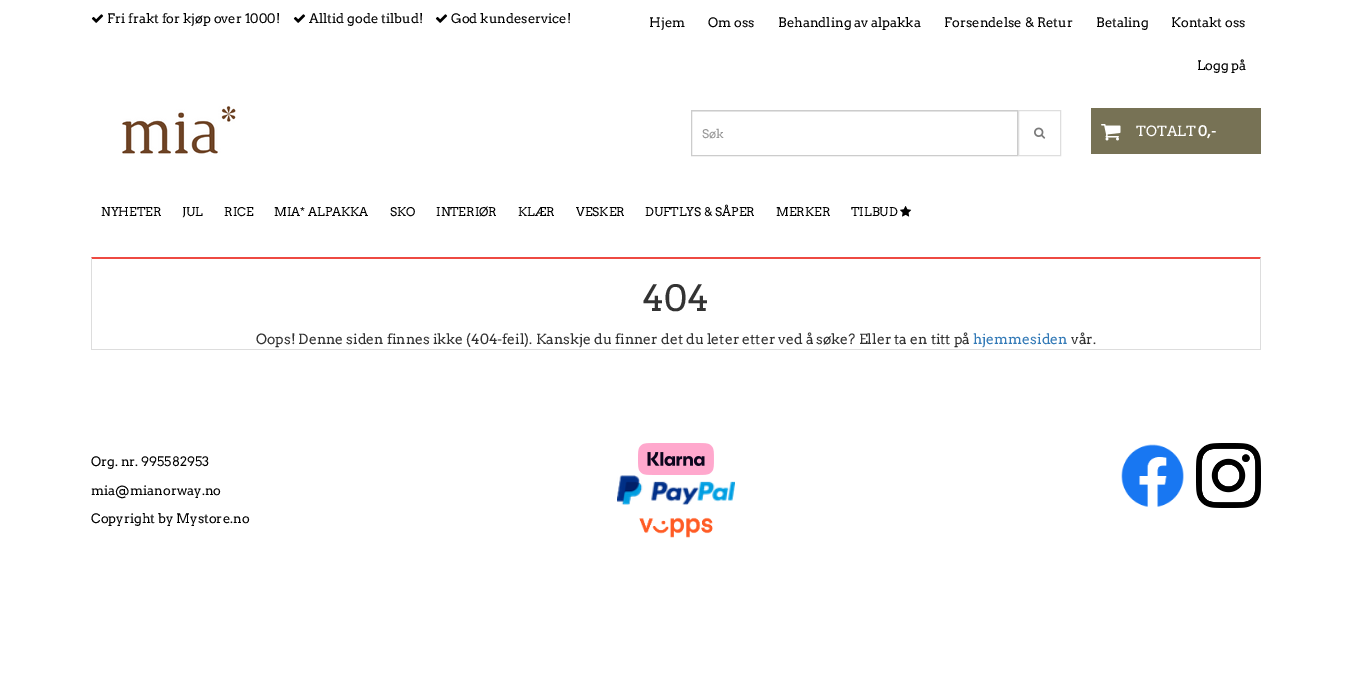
%!PS
<< /PageSize [1352 696] >> setpagedevice
/picture { 5 dict begin { /h /w /y /x /name } { exch def } forall
  gsave x y translate w h scale
  w h 8 [w 0 0 h 0 0] name (r) file false 3 colorimage grestore end } def
0 696 translate 1 -1 scale
4 setmiterlimit
1 setgray
0 0 1352 696 rectfill
(img1.rgb) 91 14 13 9 picture
/Arvo-Regular [13 0 0 -13 0 0] selectfont
0 setgray
107 23 moveto (Fri frakt for kjøp over 1000!) show
(img1.rgb) 293 14 13 9 picture
309 23 moveto (Alltid gode tilbud!) show
(img1.rgb) 435 14 13 9 picture
451 23 moveto (God kundeservice!) show
649 27 moveto (Hjem) show
708 27 moveto (Om oss) show
778 27 moveto (Behandling av alpakka) show
944 27 moveto (Forsendelse & Retur) show
1096 27 moveto (Betaling) show
1171 27 moveto (Kontakt oss) show
1197 70 moveto (Logg på) show
(img2.rgb) 122 106 114 48 picture
0.925 setgray
692 111 325 1 rectfill
0.8 setgray
691.5 110.5 326 45 rectstroke
/Arvo-Regular [12 0 0 -12 0 0] selectfont
0.6 setgray
702 138 moveto (Søk) show
0.871 setgray
1018.5 110.5 42 45 rectstroke
(img3.rgb) 1034 127 12 12 picture
0.467 0.447 0.333 setrgbcolor
1091 108 170 46 rectfill
(img4.rgb) 1101 124 20 17 picture
/Arvo-Regular [14 0 0 -14 0 0] selectfont
1 setgray
1136 136 moveto (TOTALT) show
/Arvo-Bold [14 0 0 -14 0 0] selectfont
1198 136 moveto (0,-) show
/Arvo-Regular [12 0 0 -12 0 0] selectfont
0 setgray
101 216 moveto (NYHETER) show
182 216 moveto (JUL) show
224 216 moveto (RICE) show
274 216 moveto (MIA* ALPAKKA) show
390 216 moveto (SKO) show
436 216 moveto (INTERIØR) show
518 216 moveto (KLÆR) show
576 216 moveto (VESKER) show
645 216 moveto (DUFTLYS & SÅPER) show
776 216 moveto (MERKER) show
851 216 moveto (TILBUD) show
(img5.rgb) 900 206 12 11 picture
0.933 0.29 0.259 setrgbcolor
newpath 91 257 moveto 1261 257 lineto 1260 259 lineto 92 259 lineto closepath fill
0.867 setgray
newpath 1261 257 moveto 1261 350 lineto 1260 349 lineto 1260 259 lineto closepath fill
91 349 1170 1 rectfill
newpath 91 350 moveto 91 257 lineto 92 259 lineto 92 349 lineto closepath fill
/Arvo-Regular [36 0 0 -36 0 0] selectfont
0.2 setgray
642 311 moveto (404) show
/Arvo-Regular [14 0 0 -14 0 0] selectfont
256 344 moveto (Oops! Denne siden finnes ikke \(404-feil\). Kanskje du finner det du leter etter ved å søke? Eller ta en titt på) show
0.2 0.478 0.718 setrgbcolor
973 344 moveto (hjemmesiden) show
0.2 setgray
1071 344 moveto (vår.) show
/Arvo-Regular [13 0 0 -13 0 0] selectfont
0 setgray
91 466 moveto (Org. nr. 995582953) show
91 495 moveto (mia@mianorway.no) show
91 523 moveto (Copyright by Mystore.no) show
(img6.rgb) 638 443 76 32 picture
(img7.rgb) 617 475 118 30 picture
(img8.rgb) 639 517 74 21 picture
(img9.rgb) 1121 444 63 63 picture
(img10.rgb) 1196 443 65 65 picture
showpage
